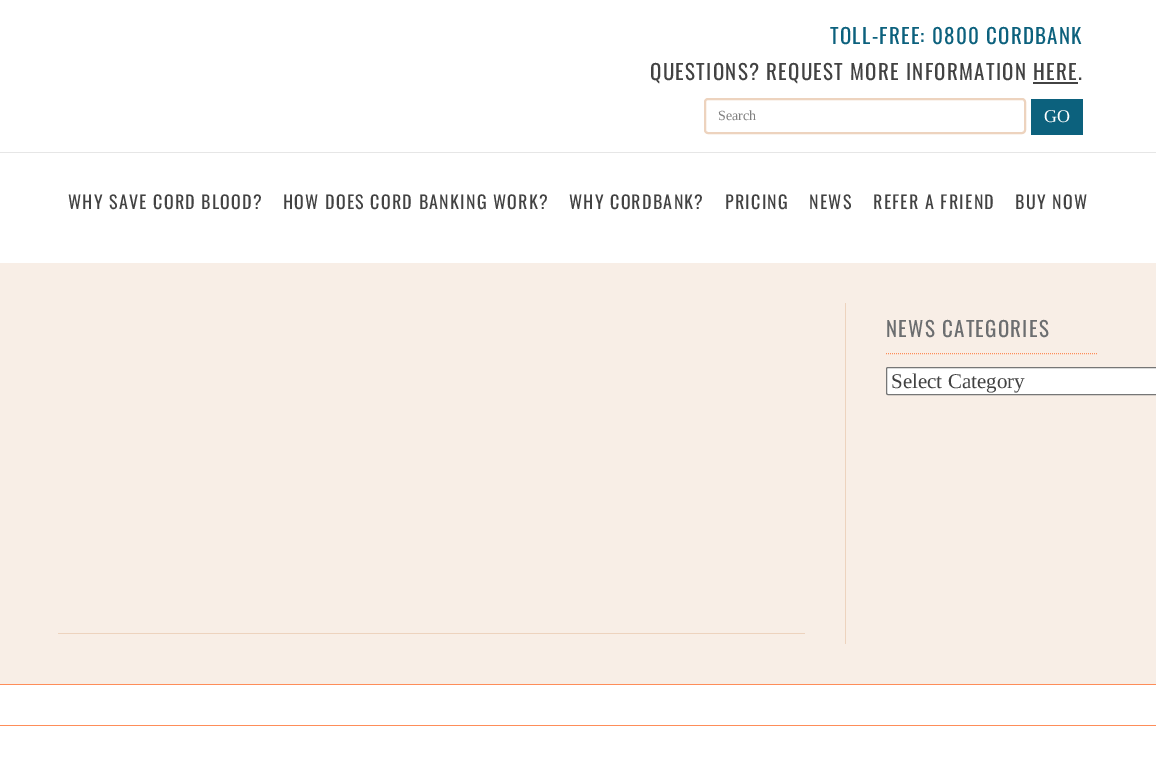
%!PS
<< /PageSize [1156 776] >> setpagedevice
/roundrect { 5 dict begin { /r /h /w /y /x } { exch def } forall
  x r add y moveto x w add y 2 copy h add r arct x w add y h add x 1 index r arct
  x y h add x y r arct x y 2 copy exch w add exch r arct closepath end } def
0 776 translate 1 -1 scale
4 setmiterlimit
0.973 0.933 0.902 setrgbcolor
0 0 1156 776 rectfill
1 setgray
0 0 1156 263 rectfill
/Oswald-Regular [21 0 0 -21 0 0] selectfont
0.047 0.38 0.49 setrgbcolor
830 44 moveto 1.25 0 (TOLL-FREE: 0800 CORDBANK) ashow
0.259 setgray
650 80 moveto 1.25 0 (QUESTIONS? REQUEST MORE INFORMATION HERE.) ashow
1033 82 45 2 rectfill
0.929 0.827 0.745 setrgbcolor
2 setlinewidth
705 99 320 34 3 roundrect stroke
/LiberationSerif-Regular [14 0 0 -14 0 0] selectfont
0.502 setgray
718 120 moveto (Search) show
0.047 0.38 0.49 setrgbcolor
1031 99 52 36 rectfill
/LiberationSerif-Regular [18 0 0 -18 0 0] selectfont
1 setgray
1044 122 moveto (GO) show
0.902 setgray
0 152 1156 1 rectfill
/Oswald-Regular [18 0 0 -18 0 0] selectfont
0.259 setgray
68 209 moveto 1.25 0 (WHY SAVE CORD BLOOD?) ashow
283 209 moveto 1.25 0 (HOW DOES CORD BANKING WORK?) ashow
569 209 moveto 1.25 0 (WHY CORDBANK?) ashow
725 209 moveto 1.25 0 (PRICING) ashow
809 209 moveto 1.25 0 (NEWS) ashow
873 209 moveto 1.25 0 (REFER A FRIEND) ashow
1015 209 moveto 1.25 0 (BUY NOW) ashow
0.929 0.827 0.745 setrgbcolor
845 303 1 341 rectfill
58 633 747 1 rectfill
0.996 0.553 0.349 setrgbcolor
1 setlinewidth
[1 1] 0 setdash
newpath 886 353.5 moveto 1098 353.5 lineto stroke
/Oswald-Regular [21 0 0 -21 0 0] selectfont
0.424 0.431 0.439 setrgbcolor
886 337 moveto 1.25 0 (NEWS CATEGORIES) ashow
1 setgray
886.5 367.5 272 27 1.5 roundrect gsave fill grestore
0.463 setgray
[] 0 setdash
stroke
/LiberationSerif-Regular [21 0 0 -21 0 0] selectfont
0.259 setgray
891 388 moveto (Select Category) show
1 setgray
0 685 1156 40 rectfill
0.996 0.553 0.349 setrgbcolor
0 684 1156 1 rectfill
0 725 1156 1 rectfill
1 setgray
0 726 1156 50 rectfill
showpage
